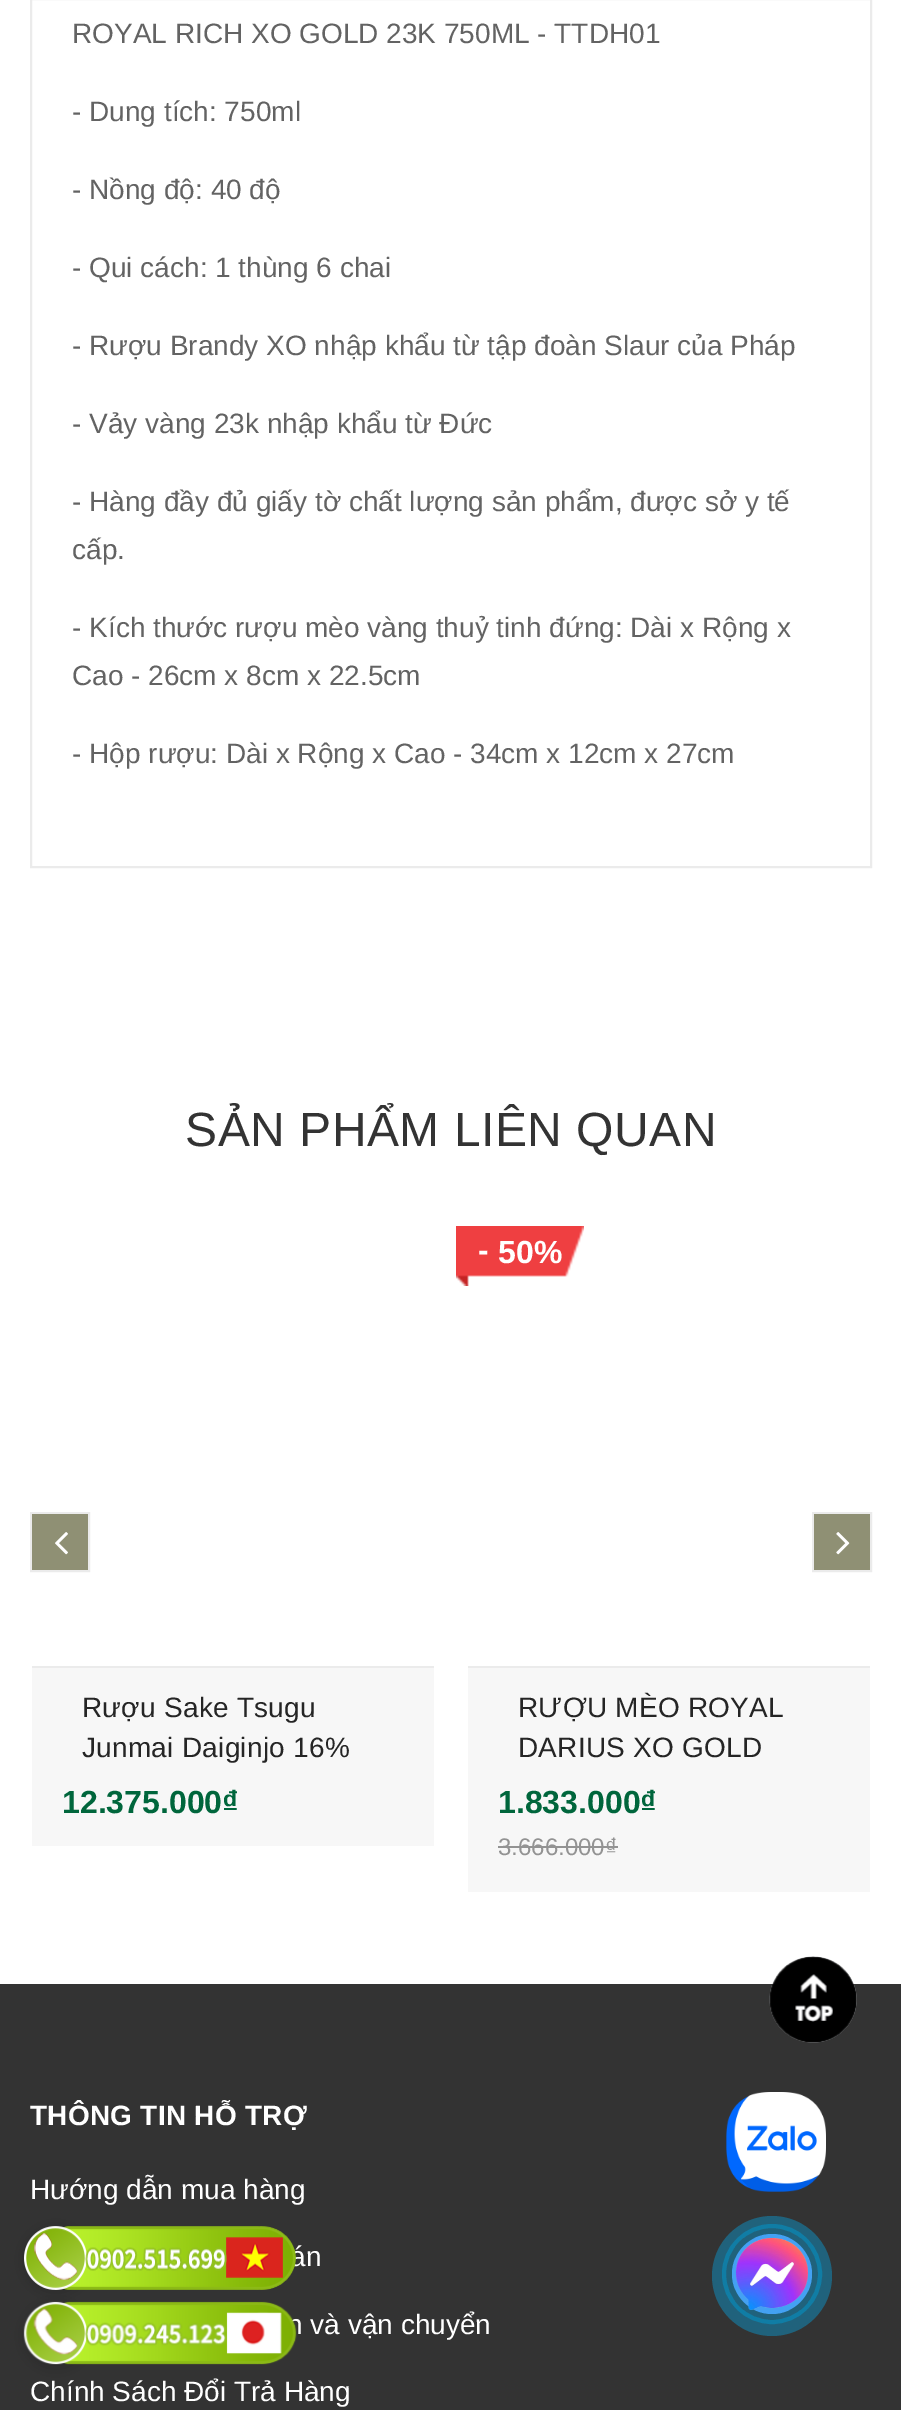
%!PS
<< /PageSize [901 2410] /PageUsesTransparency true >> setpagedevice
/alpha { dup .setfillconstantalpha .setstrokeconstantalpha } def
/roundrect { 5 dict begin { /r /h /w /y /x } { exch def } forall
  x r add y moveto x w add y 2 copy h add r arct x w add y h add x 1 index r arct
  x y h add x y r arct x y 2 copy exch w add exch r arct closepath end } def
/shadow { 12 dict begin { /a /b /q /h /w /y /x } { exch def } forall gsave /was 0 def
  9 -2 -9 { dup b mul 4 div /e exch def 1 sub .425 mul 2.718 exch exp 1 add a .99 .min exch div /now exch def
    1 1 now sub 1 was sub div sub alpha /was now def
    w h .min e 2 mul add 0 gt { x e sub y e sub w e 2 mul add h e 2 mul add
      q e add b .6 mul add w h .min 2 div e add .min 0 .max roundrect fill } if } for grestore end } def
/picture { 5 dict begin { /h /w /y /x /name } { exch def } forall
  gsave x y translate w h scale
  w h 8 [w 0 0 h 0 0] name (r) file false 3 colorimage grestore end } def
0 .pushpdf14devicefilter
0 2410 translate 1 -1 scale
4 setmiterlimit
1 setgray
0 0 901 2410 rectfill
0.922 setgray
2 setlinewidth
31 -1 840 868 rectstroke
/LiberationSans-Regular [28 0 0 -28 0 0] selectfont
0.388 setgray
72 43 moveto (ROYAL RICH XO GOLD 23K 750ML - TTDH01) show
72 121 moveto (- Dung tích: 750ml) show
72 199 moveto (- Nồng độ: 40 độ) show
72 277 moveto (- Qui cách: 1 thùng 6 chai) show
72 355 moveto (- Rượu Brandy XO nhập khẩu từ tập đoàn Slaur của Pháp) show
72 433 moveto (- Vảy vàng 23k nhập khẩu từ Đức) show
72 511 moveto (- Hàng đầy đủ giấy tờ chất lượng sản phẩm, được sở y tế) show
72 559 moveto (cấp.) show
72 637 moveto (- Kích thước rượu mèo vàng thuỷ tinh đứng: Dài x Rộng x) show
72 685 moveto (Cao - 26cm x 8cm x 22.5cm) show
72 763 moveto (- Hộp rượu: Dài x Rộng x Cao - 34cm x 12cm x 27cm) show
/LiberationSans-Regular [48 0 0 -48 0 0] selectfont
0.2 setgray
185 1146 moveto 0.5 0 (SẢN PHẨM LIÊN QUAN) ashow
0.969 setgray
32 1668 402 178 rectfill
0.922 setgray
32 1666 402 2 rectfill
/LiberationSans-Regular [28 0 0 -28 0 0] selectfont
0.145 setgray
82 1717 moveto 0.25 0 (Rượu Sake Tsugu) ashow
82 1757 moveto 0.25 0 (Junmai Daiginjo 16%) ashow
/LiberationSans-Bold [32 0 0 -32 0 0] selectfont
0 0.4 0.235 setrgbcolor
62 1813 moveto (12.375.000₫) show
(img1.rgb) 456 1226 128 60 picture
1 setgray
478 1261 moveto (-) show
498 1263 moveto (50%) show
0.969 setgray
468 1668 402 224 rectfill
0.922 setgray
468 1666 402 2 rectfill
/LiberationSans-Regular [28 0 0 -28 0 0] selectfont
0.145 setgray
518 1717 moveto 0.25 0 (RƯỢU MÈO ROYAL) ashow
518 1757 moveto 0.25 0 (DARIUS XO GOLD) ashow
/LiberationSans-Bold [32 0 0 -32 0 0] selectfont
0 0.4 0.235 setrgbcolor
498 1813 moveto (1.833.000₫) show
/LiberationSans-Regular [24 0 0 -24 0 0] selectfont
0.576 setgray
498 1855 moveto (3.666.000₫) show
498 1846 120 2 rectfill
0.922 setgray
31 1513 58 58 rectstroke
0.561 0.565 0.455 setrgbcolor
32 1514 56 56 rectfill
(img2.rgb) 55 1532 13 23 picture
0.922 setgray
813 1513 58 58 rectstroke
0.561 0.565 0.455 setrgbcolor
814 1514 56 56 rectfill
(img3.rgb) 836 1532 14 23 picture
0.2 setgray
0 1984 901 426 rectfill
(img4.rgb) 769 1956 88 87 picture
/LiberationSans-Bold [28 0 0 -28 0 0] selectfont
1 setgray
30 2125 moveto 0.25 0 (THÔNG TIN HỖ TRỢ) ashow
/LiberationSans-Regular [28 0 0 -28 0 0] selectfont
30 2199 moveto (Hướng dẫn mua hàng) show
290 2266 moveto (án) show
287 2334 moveto (n và vận chuyển) show
30 2401 moveto (Chính Sách Đổi Trả Hàng) show
(img5.rgb) 726 2092 100 100 picture
0 setgray
28 2232 56 56 28 8 0.3 shadow
28 2308 56 56 28 8 0.3 shadow
(img6.rgb) 24 2226 272 64 picture
0.62 0.776 0.216 setrgbcolor
newpath 54 2334 27 0 360 arc closepath stroke
newpath 54 2334 27 0 360 arc closepath stroke
(img7.rgb) 23 2301 274 64 picture
0.102 0.369 0.463 setrgbcolor
4 setlinewidth
newpath 772 2274 48 0 360 arc closepath stroke
0.38 alpha
0 0.686 0.949 setrgbcolor
newpath 772 2276 60 0 360 arc closepath fill
1 alpha
0.263 0.631 0.953 setrgbcolor
newpath 772 2274 40 0 360 arc closepath fill
(img8.rgb) 735 2238 73 72 picture
.poppdf14devicefilter showpage
